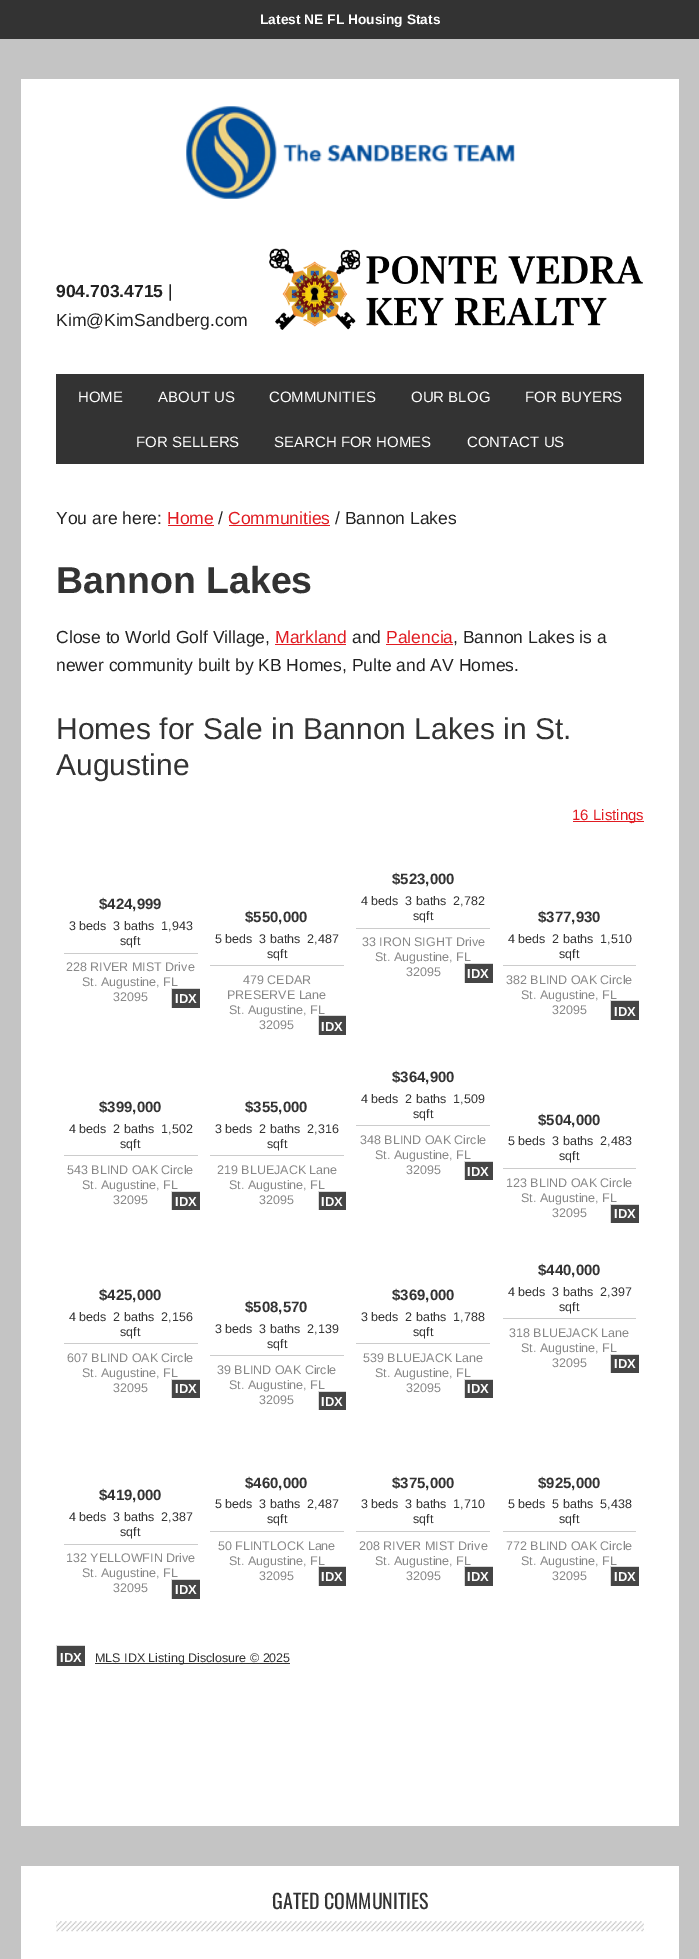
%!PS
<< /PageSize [699 1959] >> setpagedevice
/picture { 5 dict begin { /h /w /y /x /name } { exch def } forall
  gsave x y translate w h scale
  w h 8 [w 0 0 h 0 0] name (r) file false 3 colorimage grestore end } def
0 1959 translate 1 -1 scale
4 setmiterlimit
0.769 setgray
0 0 699 1959 rectfill
0.2 setgray
0 0 699 39 rectfill
/LiberationSans-Bold [13.75 0 0 -13.75 0 0] selectfont
1 setgray
260 24 moveto (Latest NE FL Housing Stats) show
21 79 658 1747 rectfill
(img1.rgb) 186 106 329 93 picture
/LiberationSans-Bold [17.5 0 0 -17.5 0 0] selectfont
0.133 setgray
56 297 moveto (904.703.4715) show
/LiberationSans-Regular [17.5 0 0 -17.5 0 0] selectfont
168 297 moveto (|) show
(img2.rgb) 269 248 374 82 picture
56 326 moveto (Kim@KimSandberg.com) show
0.2 setgray
56 374 588 90 rectfill
/LiberationSans-Regular [15 0 0 -15 0 0] selectfont
1 setgray
78 402 moveto (HOME) show
158 402 moveto (ABOUT US) show
269 402 moveto (COMMUNITIES) show
411 402 moveto (OUR BLOG) show
525 402 moveto (FOR BUYERS) show
136 447 moveto (FOR SELLERS) show
274 447 moveto (SEARCH FOR HOMES) show
467 447 moveto (CONTACT US) show
/LiberationSans-Regular [17.5 0 0 -17.5 0 0] selectfont
0.133 setgray
56 524 moveto (You are here:) show
0.882 0.106 0.133 setrgbcolor
167 524 moveto (Home) show
168 525 46 1 rectfill
0.133 setgray
218 524 moveto (/) show
0.882 0.106 0.133 setrgbcolor
228 524 moveto (Communities) show
229 525 101 1 rectfill
0.133 setgray
335 524 moveto (/ Bannon Lakes) show
/LiberationSans-Bold [37.5 0 0 -37.5 0 0] selectfont
0.2 setgray
56 593 moveto (Bannon Lakes) show
/LiberationSans-Regular [17.5 0 0 -17.5 0 0] selectfont
0.133 setgray
56 643 moveto (Close to World Golf Village,) show
0.882 0.106 0.133 setrgbcolor
275 643 moveto (Markland) show
275 644 71 1 rectfill
0.133 setgray
352 643 moveto (and) show
0.882 0.106 0.133 setrgbcolor
386 643 moveto (Palencia) show
386 644 67 1 rectfill
0.133 setgray
453 643 moveto (, Bannon Lakes is a) show
56 671 moveto (newer community built by KB Homes, Pulte and AV Homes.) show
/LiberationSans-Regular [30 0 0 -30 0 0] selectfont
0.2 setgray
56 739 moveto (Homes for Sale in Bannon Lakes in St.) show
56 775 moveto (Augustine) show
0.882 0.106 0.133 setrgbcolor
573 821 71 1 rectfill
/LiberationSans-Regular [15 0 0 -15 0 0] selectfont
572 820 moveto (16 Listings) show
/LiberationSans-Bold [15 0 0 -15 0 0] selectfont
0.2 setgray
99 909 moveto ($424,999) show
0.8 setgray
64 953 134 1 rectfill
/LiberationSans-Regular [12.5 0 0 -12.5 0 0] selectfont
0.2 setgray
69 930 moveto (3 beds  3 baths  1,943) show
120 945 moveto (sqft) show
0.533 setgray
66 971 moveto (228 RIVER MIST Drive) show
82 986 moveto (St. Augustine, FL) show
113 1001 moveto (32095) show
0.271 setgray
172 989 28 19 rectfill
0.855 setgray
171 988 29 1 rectfill
171 988 1 20 rectfill
/LiberationSans-Bold [13 0 0 -13 0 0] selectfont
1 setgray
175 1003 moveto (IDX) show
/LiberationSans-Bold [15 0 0 -15 0 0] selectfont
0.2 setgray
245 922 moveto ($550,000) show
0.8 setgray
210 965 134 1 rectfill
/LiberationSans-Regular [12.5 0 0 -12.5 0 0] selectfont
0.2 setgray
215 943 moveto (5 beds  3 baths  2,487) show
267 958 moveto (sqft) show
0.533 setgray
243 984 moveto (479 CEDAR) show
227 999 moveto (PRESERVE Lane) show
229 1014 moveto (St. Augustine, FL) show
259 1029 moveto (32095) show
0.271 setgray
319 1016 27 19 rectfill
0.855 setgray
318 1015 28 1 rectfill
318 1015 1 20 rectfill
/LiberationSans-Bold [13 0 0 -13 0 0] selectfont
1 setgray
321 1031 moveto (IDX) show
/LiberationSans-Bold [15 0 0 -15 0 0] selectfont
0.2 setgray
392 884 moveto ($523,000) show
0.8 setgray
356 928 134 1 rectfill
/LiberationSans-Regular [12.5 0 0 -12.5 0 0] selectfont
0.2 setgray
361 905 moveto (4 beds  3 baths  2,782) show
413 920 moveto (sqft) show
0.533 setgray
362 946 moveto (33 IRON SIGHT Drive) show
375 961 moveto (St. Augustine, FL) show
406 976 moveto (32095) show
0.271 setgray
465 964 28 19 rectfill
0.855 setgray
464 963 29 1 rectfill
464 963 1 20 rectfill
/LiberationSans-Bold [13 0 0 -13 0 0] selectfont
1 setgray
467 978 moveto (IDX) show
/LiberationSans-Bold [15 0 0 -15 0 0] selectfont
0.2 setgray
538 922 moveto ($377,930) show
0.8 setgray
503 965 133 1 rectfill
/LiberationSans-Regular [12.5 0 0 -12.5 0 0] selectfont
0.2 setgray
508 943 moveto (4 beds  2 baths  1,510) show
559 958 moveto (sqft) show
0.533 setgray
506 984 moveto (382 BLIND OAK Circle) show
521 999 moveto (St. Augustine, FL) show
552 1014 moveto (32095) show
0.271 setgray
611 1001 28 19 rectfill
0.855 setgray
610 1000 29 1 rectfill
610 1000 1 20 rectfill
/LiberationSans-Bold [13 0 0 -13 0 0] selectfont
1 setgray
614 1016 moveto (IDX) show
/LiberationSans-Bold [15 0 0 -15 0 0] selectfont
0.2 setgray
99 1112 moveto ($399,000) show
0.8 setgray
64 1155 134 1 rectfill
/LiberationSans-Regular [12.5 0 0 -12.5 0 0] selectfont
0.2 setgray
69 1133 moveto (4 beds  2 baths  1,502) show
120 1148 moveto (sqft) show
0.533 setgray
67 1174 moveto (543 BLIND OAK Circle) show
82 1189 moveto (St. Augustine, FL) show
113 1204 moveto (32095) show
0.271 setgray
172 1192 28 18 rectfill
0.855 setgray
171 1191 29 1 rectfill
171 1191 1 19 rectfill
/LiberationSans-Bold [13 0 0 -13 0 0] selectfont
1 setgray
175 1206 moveto (IDX) show
/LiberationSans-Bold [15 0 0 -15 0 0] selectfont
0.2 setgray
245 1112 moveto ($355,000) show
0.8 setgray
210 1155 134 1 rectfill
/LiberationSans-Regular [12.5 0 0 -12.5 0 0] selectfont
0.2 setgray
215 1133 moveto (3 beds  2 baths  2,316) show
267 1148 moveto (sqft) show
0.533 setgray
217 1174 moveto (219 BLUEJACK Lane) show
229 1189 moveto (St. Augustine, FL) show
259 1204 moveto (32095) show
0.271 setgray
319 1192 27 18 rectfill
0.855 setgray
318 1191 28 1 rectfill
318 1191 1 19 rectfill
/LiberationSans-Bold [13 0 0 -13 0 0] selectfont
1 setgray
321 1206 moveto (IDX) show
/LiberationSans-Bold [15 0 0 -15 0 0] selectfont
0.2 setgray
392 1082 moveto ($364,900) show
0.8 setgray
356 1125 134 1 rectfill
/LiberationSans-Regular [12.5 0 0 -12.5 0 0] selectfont
0.2 setgray
361 1103 moveto (4 beds  2 baths  1,509) show
413 1118 moveto (sqft) show
0.533 setgray
360 1144 moveto (348 BLIND OAK Circle) show
375 1159 moveto (St. Augustine, FL) show
406 1174 moveto (32095) show
0.271 setgray
465 1162 28 18 rectfill
0.855 setgray
464 1161 29 1 rectfill
464 1161 1 19 rectfill
/LiberationSans-Bold [13 0 0 -13 0 0] selectfont
1 setgray
467 1176 moveto (IDX) show
/LiberationSans-Bold [15 0 0 -15 0 0] selectfont
0.2 setgray
538 1125 moveto ($504,000) show
0.8 setgray
503 1168 133 1 rectfill
/LiberationSans-Regular [12.5 0 0 -12.5 0 0] selectfont
0.2 setgray
508 1145 moveto (5 beds  3 baths  2,483) show
559 1160 moveto (sqft) show
0.533 setgray
506 1187 moveto (123 BLIND OAK Circle) show
521 1202 moveto (St. Augustine, FL) show
552 1217 moveto (32095) show
0.271 setgray
611 1205 28 18 rectfill
0.855 setgray
610 1204 29 1 rectfill
610 1204 1 19 rectfill
/LiberationSans-Bold [13 0 0 -13 0 0] selectfont
1 setgray
614 1218 moveto (IDX) show
/LiberationSans-Bold [15 0 0 -15 0 0] selectfont
0.2 setgray
99 1300 moveto ($425,000) show
0.8 setgray
64 1343 134 1 rectfill
/LiberationSans-Regular [12.5 0 0 -12.5 0 0] selectfont
0.2 setgray
69 1321 moveto (4 beds  2 baths  2,156) show
120 1336 moveto (sqft) show
0.533 setgray
67 1362 moveto (607 BLIND OAK Circle) show
82 1377 moveto (St. Augustine, FL) show
113 1392 moveto (32095) show
0.271 setgray
172 1380 28 18 rectfill
0.855 setgray
171 1379 29 1 rectfill
171 1379 1 19 rectfill
/LiberationSans-Bold [13 0 0 -13 0 0] selectfont
1 setgray
175 1393 moveto (IDX) show
/LiberationSans-Bold [15 0 0 -15 0 0] selectfont
0.2 setgray
245 1312 moveto ($508,570) show
0.8 setgray
210 1355 134 1 rectfill
/LiberationSans-Regular [12.5 0 0 -12.5 0 0] selectfont
0.2 setgray
215 1333 moveto (3 beds  3 baths  2,139) show
267 1348 moveto (sqft) show
0.533 setgray
217 1374 moveto (39 BLIND OAK Circle) show
229 1389 moveto (St. Augustine, FL) show
259 1404 moveto (32095) show
0.271 setgray
319 1392 27 18 rectfill
0.855 setgray
318 1391 28 1 rectfill
318 1391 1 19 rectfill
/LiberationSans-Bold [13 0 0 -13 0 0] selectfont
1 setgray
321 1406 moveto (IDX) show
/LiberationSans-Bold [15 0 0 -15 0 0] selectfont
0.2 setgray
392 1300 moveto ($369,000) show
0.8 setgray
356 1343 134 1 rectfill
/LiberationSans-Regular [12.5 0 0 -12.5 0 0] selectfont
0.2 setgray
361 1321 moveto (3 beds  2 baths  1,788) show
413 1336 moveto (sqft) show
0.533 setgray
363 1362 moveto (539 BLUEJACK Lane) show
375 1377 moveto (St. Augustine, FL) show
406 1392 moveto (32095) show
0.271 setgray
465 1380 28 18 rectfill
0.855 setgray
464 1379 29 1 rectfill
464 1379 1 19 rectfill
/LiberationSans-Bold [13 0 0 -13 0 0] selectfont
1 setgray
467 1393 moveto (IDX) show
/LiberationSans-Bold [15 0 0 -15 0 0] selectfont
0.2 setgray
538 1275 moveto ($440,000) show
0.8 setgray
503 1318 133 1 rectfill
/LiberationSans-Regular [12.5 0 0 -12.5 0 0] selectfont
0.2 setgray
508 1296 moveto (4 beds  3 baths  2,397) show
559 1311 moveto (sqft) show
0.533 setgray
509 1337 moveto (318 BLUEJACK Lane) show
521 1352 moveto (St. Augustine, FL) show
552 1367 moveto (32095) show
0.271 setgray
611 1355 28 18 rectfill
0.855 setgray
610 1354 29 1 rectfill
610 1354 1 19 rectfill
/LiberationSans-Bold [13 0 0 -13 0 0] selectfont
1 setgray
614 1368 moveto (IDX) show
/LiberationSans-Bold [15 0 0 -15 0 0] selectfont
0.2 setgray
99 1500 moveto ($419,000) show
0.8 setgray
64 1544 134 1 rectfill
/LiberationSans-Regular [12.5 0 0 -12.5 0 0] selectfont
0.2 setgray
69 1521 moveto (4 beds  3 baths  2,387) show
120 1536 moveto (sqft) show
0.533 setgray
66 1562 moveto (132 YELLOWFIN Drive) show
82 1577 moveto (St. Augustine, FL) show
113 1592 moveto (32095) show
0.271 setgray
172 1580 28 19 rectfill
0.855 setgray
171 1579 29 1 rectfill
171 1579 1 20 rectfill
/LiberationSans-Bold [13 0 0 -13 0 0] selectfont
1 setgray
175 1594 moveto (IDX) show
/LiberationSans-Bold [15 0 0 -15 0 0] selectfont
0.2 setgray
245 1488 moveto ($460,000) show
0.8 setgray
210 1531 134 1 rectfill
/LiberationSans-Regular [12.5 0 0 -12.5 0 0] selectfont
0.2 setgray
215 1508 moveto (5 beds  3 baths  2,487) show
267 1523 moveto (sqft) show
0.533 setgray
218 1550 moveto (50 FLINTLOCK Lane) show
229 1565 moveto (St. Augustine, FL) show
259 1580 moveto (32095) show
0.271 setgray
319 1567 27 19 rectfill
0.855 setgray
318 1566 28 1 rectfill
318 1566 1 20 rectfill
/LiberationSans-Bold [13 0 0 -13 0 0] selectfont
1 setgray
321 1581 moveto (IDX) show
/LiberationSans-Bold [15 0 0 -15 0 0] selectfont
0.2 setgray
392 1488 moveto ($375,000) show
0.8 setgray
356 1531 134 1 rectfill
/LiberationSans-Regular [12.5 0 0 -12.5 0 0] selectfont
0.2 setgray
361 1508 moveto (3 beds  3 baths  1,710) show
413 1523 moveto (sqft) show
0.533 setgray
359 1550 moveto (208 RIVER MIST Drive) show
375 1565 moveto (St. Augustine, FL) show
406 1580 moveto (32095) show
0.271 setgray
465 1567 28 19 rectfill
0.855 setgray
464 1566 29 1 rectfill
464 1566 1 20 rectfill
/LiberationSans-Bold [13 0 0 -13 0 0] selectfont
1 setgray
467 1581 moveto (IDX) show
/LiberationSans-Bold [15 0 0 -15 0 0] selectfont
0.2 setgray
538 1488 moveto ($925,000) show
0.8 setgray
503 1531 133 1 rectfill
/LiberationSans-Regular [12.5 0 0 -12.5 0 0] selectfont
0.2 setgray
508 1508 moveto (5 beds  5 baths  5,438) show
559 1523 moveto (sqft) show
0.533 setgray
506 1550 moveto (772 BLIND OAK Circle) show
521 1565 moveto (St. Augustine, FL) show
552 1580 moveto (32095) show
0.271 setgray
611 1567 28 19 rectfill
0.855 setgray
610 1566 29 1 rectfill
610 1566 1 20 rectfill
/LiberationSans-Bold [13 0 0 -13 0 0] selectfont
1 setgray
614 1581 moveto (IDX) show
0.271 setgray
57 1646 28 20 rectfill
1 setgray
60 1662 moveto (IDX) show
0.855 setgray
56 1645 29 1 rectfill
56 1645 1 21 rectfill
0.2 setgray
95 1663 195 1 rectfill
/LiberationSans-Regular [12.5 0 0 -12.5 0 0] selectfont
95 1662 moveto (MLS IDX Listing Disclosure © 2025) show
1 setgray
21 1866 658 93 rectfill
(img3.rgb) 56 1921 588 11 picture
/Oswald-Regular [20 0 0 -20 0 0] selectfont
0.2 setgray
272 1909 moveto (GATED COMMUNITIES) show
showpage
